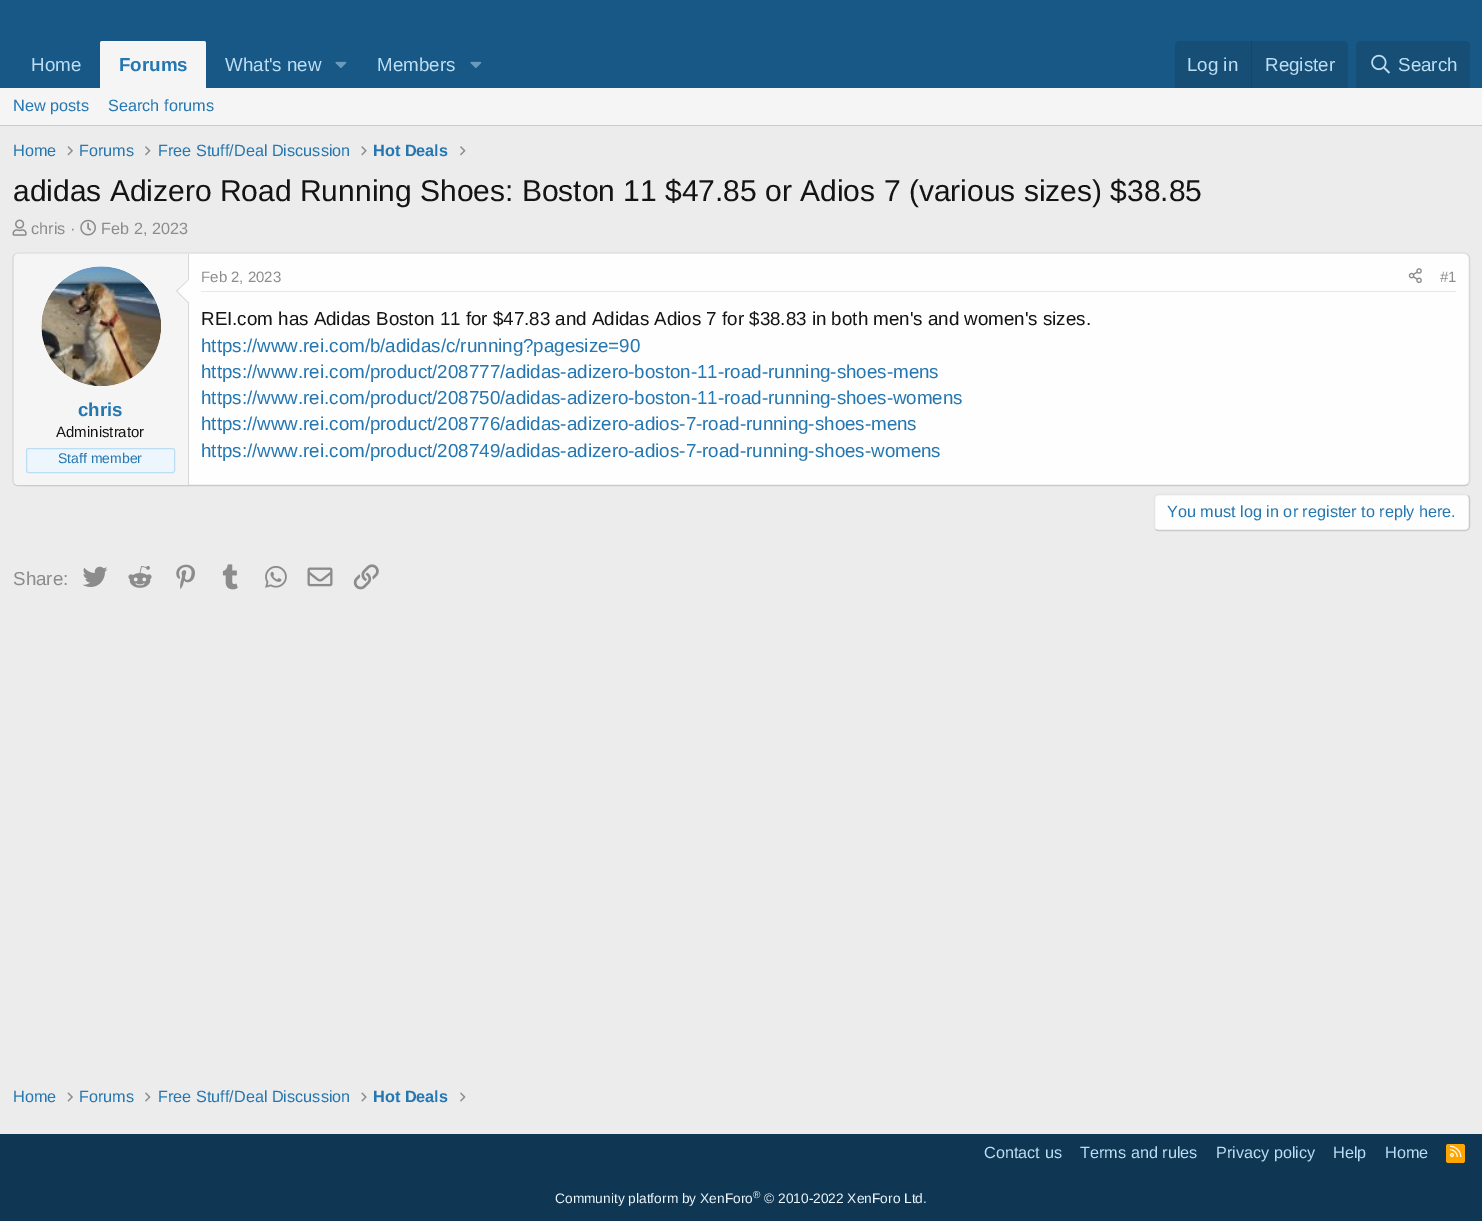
%!PS
<< /PageSize [1482 1221] >> setpagedevice
/roundrect { 5 dict begin { /r /h /w /y /x } { exch def } forall
  x r add y moveto x w add y 2 copy h add r arct x w add y h add x 1 index r arct
  x y h add x y r arct x y 2 copy exch w add exch r arct closepath end } def
/picture { 5 dict begin { /h /w /y /x /name } { exch def } forall
  gsave x y translate w h scale
  w h 8 [w 0 0 h 0 0] name (r) file false 3 colorimage grestore end } def
0 1221 translate 1 -1 scale
4 setmiterlimit
0.925 setgray
0 0 1482 1221 rectfill
0.094 0.345 0.525 setrgbcolor
0 0 1482 88 rectfill
/LiberationSans-Regular [18.75 0 0 -18.75 0 0] selectfont
0.737 0.871 0.961 setrgbcolor
31 71 moveto (Home) show
0.961 setgray
newpath 102.5 41 moveto 203.5 41 lineto 205 41 206 42 206 43.5 curveto 206 88 lineto 100 88 lineto 100 43.5 lineto 100 42 101 41 102.5 41 curveto closepath fill
/LiberationSans-Bold [18.75 0 0 -18.75 0 0] selectfont
0.145 0.467 0.694 setrgbcolor
119 71 moveto (Forums) show
/LiberationSans-Regular [18.75 0 0 -18.75 0 0] selectfont
0.737 0.871 0.961 setrgbcolor
225 71 moveto (What's new) show
(img1.rgb) 335 61 12 7 picture
377 71 moveto (Members) show
(img1.rgb) 470 61 12 7 picture
0.09 0.306 0.459 setrgbcolor
newpath 1180 41 moveto 1343 41 lineto 1346 41 1348 43 1348 46 curveto 1348 88 lineto 1175 88 lineto 1175 46 lineto 1175 43 1177 41 1180 41 curveto closepath fill
0.737 0.871 0.961 setrgbcolor
1187 71 moveto (Log in) show
0.09 0.271 0.4 setrgbcolor
1251 41 1 47 rectfill
0.737 0.871 0.961 setrgbcolor
1265 71 moveto (Register) show
0.09 0.306 0.459 setrgbcolor
newpath 1361 41 moveto 1465 41 lineto 1468 41 1470 43 1470 46 curveto 1470 88 lineto 1356 88 lineto 1356 46 lineto 1356 43 1358 41 1361 41 curveto closepath fill
(img2.rgb) 1371 54 19 20 picture
0.737 0.871 0.961 setrgbcolor
1398 71 moveto (Search) show
0.961 setgray
0 88 1482 37 rectfill
0.796 setgray
0 125 1482 1 rectfill
/LiberationSans-Regular [16.25 0 0 -16.25 0 0] selectfont
0.145 0.467 0.694 setrgbcolor
13 111 moveto (New posts) show
108 111 moveto (Search forums) show
13 156 moveto (Home) show
(img3.rgb) 67 146 6 10 picture
79 156 moveto (Forums) show
(img4.rgb) 145 146 6 10 picture
158 156 moveto (Free Stuff/Deal Discussion) show
(img5.rgb) 361 146 6 10 picture
/LiberationSans-Bold [16.25 0 0 -16.25 0 0] selectfont
373 156 moveto (Hot Deals) show
(img4.rgb) 460 146 6 10 picture
/LiberationSans-Regular [30 0 0 -30 0 0] selectfont
0.078 setgray
13 201 moveto (adidas Adizero Road Running Shoes: Boston 11 $47.85 or Adios 7 \(various sizes\) $38.85) show
(img6.rgb) 12 219 15 17 picture
/LiberationSans-Regular [16.25 0 0 -16.25 0 0] selectfont
0.549 setgray
31 234 moveto (chris ·) show
(img7.rgb) 80 219 16 17 picture
101 234 moveto (Feb 2, 2023) show
0.996 setgray
13 253 1457 233 5 roundrect fill
0.875 setgray
1.2 setlinewidth
newpath 14.5 254.5 moveto 17.5 253 lineto 1465 253 lineto 1468 254.5 lineto stroke
0.847 setgray
newpath 1468 254.5 moveto 1469.5 257.5 lineto 1469.5 481.5 lineto 1468 484.5 lineto stroke
0.796 setgray
newpath 1468 484.5 moveto 1465 485.5 lineto 17.5 485.5 lineto 14.5 484.5 lineto stroke
0.847 setgray
newpath 14.5 484.5 moveto 13 481.5 lineto 13 295 lineto 13 257.5 lineto 14.5 254.5 lineto stroke
0.961 setgray
newpath 18 254 moveto 189 254 lineto 189 485 lineto 18 485 lineto 16 485 14 483 14 481 curveto 14 258 lineto 14 256 16 254 18 254 curveto closepath fill
0.847 setgray
188 254 1 231 rectfill
0.996 setgray
newpath 101 326 60 0 360 arc closepath fill
(img8.rgb) 41 266 120 120 picture
0.847 setgray
newpath 189 279 moveto 189 304 lineto 176 291 lineto closepath fill
0.996 setgray
newpath 189 280 moveto 189 302.5 lineto 177.5 291 lineto closepath fill
/LiberationSans-Bold [18.75 0 0 -18.75 0 0] selectfont
0.145 0.467 0.694 setrgbcolor
78 416 moveto (chris) show
/LiberationSans-Regular [15 0 0 -15 0 0] selectfont
0.078 setgray
56 437 moveto (Administrator) show
0.929 0.965 0.992 setrgbcolor
26.5 448.5 148 24 2 roundrect gsave fill grestore
0.737 0.871 0.961 setrgbcolor
1 setlinewidth
stroke
/LiberationSans-Regular [14 0 0 -14 0 0] selectfont
0.145 0.467 0.694 setrgbcolor
58 463 moveto (Staff member) show
0.906 setgray
201 291 1255 1 rectfill
/LiberationSans-Regular [15 0 0 -15 0 0] selectfont
0.549 setgray
201 282 moveto (Feb 2, 2023) show
(img9.rgb) 1408 268 14 16 picture
1440 282 moveto (#1) show
/LiberationSans-Regular [18.75 0 0 -18.75 0 0] selectfont
0.078 setgray
201 325 moveto (REI.com has Adidas Boston 11 for $47.83 and Adidas Adios 7 for $38.83 in both men's and women's sizes.) show
0.145 0.467 0.694 setrgbcolor
201 352 moveto (https://www.rei.com/b/adidas/c/running?pagesize=90) show
201 378 moveto (https://www.rei.com/product/208777/adidas-adizero-boston-11-road-running-shoes-mens) show
201 404 moveto (https://www.rei.com/product/208750/adidas-adizero-boston-11-road-running-shoes-womens) show
201 430 moveto (https://www.rei.com/product/208776/adidas-adizero-adios-7-road-running-shoes-mens) show
201 457 moveto (https://www.rei.com/product/208749/adidas-adizero-adios-7-road-running-shoes-womens) show
0.996 setgray
1154 494 316 37 5 roundrect fill
0.796 setgray
1.2 setlinewidth
newpath 1468 495.5 moveto 1469 496.5 1469.5 497.5 1469.5 499 curveto 1469.5 526 lineto 1469.5 527.5 1469 528.5 1468 529.5 curveto 1467.5 530 1466 530.5 1465 530.5 curveto 1159 530.5 lineto 1157.5 530.5 1156.5 530 1155.5 529.5 curveto stroke
0.898 setgray
newpath 1155.5 529.5 moveto 1155 528.5 1154.5 527.5 1154.5 526 curveto 1154.5 499 lineto 1154.5 497.5 1155 496.5 1155.5 495.5 curveto 1156.5 495 1157.5 494.5 1159 494.5 curveto 1465 494.5 lineto 1466 494.5 1467.5 495 1468 495.5 curveto stroke
/LiberationSans-Regular [16.25 0 0 -16.25 0 0] selectfont
0.145 0.467 0.694 setrgbcolor
1167 517 moveto (You must log in or register to reply here.) show
/LiberationSans-Regular [18.75 0 0 -18.75 0 0] selectfont
0.549 setgray
13 585 moveto (Share:) show
(img10.rgb) 82 566 26 21 picture
(img11.rgb) 128 566 24 22 picture
(img12.rgb) 176 564 19 25 picture
(img13.rgb) 222 564 16 26 picture
(img14.rgb) 265 566 22 22 picture
(img15.rgb) 307 567 26 20 picture
(img16.rgb) 353 564 26 26 picture
/LiberationSans-Regular [16.25 0 0 -16.25 0 0] selectfont
0.145 0.467 0.694 setrgbcolor
13 1102 moveto (Home) show
(img17.rgb) 67 1092 6 10 picture
79 1102 moveto (Forums) show
(img18.rgb) 145 1092 6 10 picture
158 1102 moveto (Free Stuff/Deal Discussion) show
(img19.rgb) 361 1092 6 10 picture
/LiberationSans-Bold [16.25 0 0 -16.25 0 0] selectfont
373 1102 moveto (Hot Deals) show
(img18.rgb) 460 1092 6 10 picture
0.059 0.212 0.322 setrgbcolor
0 1134 1482 87 rectfill
/LiberationSans-Regular [16.25 0 0 -16.25 0 0] selectfont
0.737 0.871 0.961 setrgbcolor
984 1158 moveto (Contact us) show
1080 1158 moveto (Terms and rules) show
1216 1158 moveto (Privacy policy) show
1333 1158 moveto (Help) show
1385 1158 moveto (Home) show
1 0.647 0 setrgbcolor
1446 1144 19 19 2.5 roundrect fill
(img20.rgb) 1450 1145 12 13 picture
/LiberationSans-Regular [13.75 0 0 -13.75 0 0] selectfont
0.929 0.965 0.992 setrgbcolor
555 1203 moveto (Community platform by XenForo) show
/LiberationSans-Regular [10 0 0 -10 0 0] selectfont
753 1198 moveto (®) show
/LiberationSans-Regular [13.75 0 0 -13.75 0 0] selectfont
764 1203 moveto (© 2010-2022 XenForo Ltd.) show
showpage
